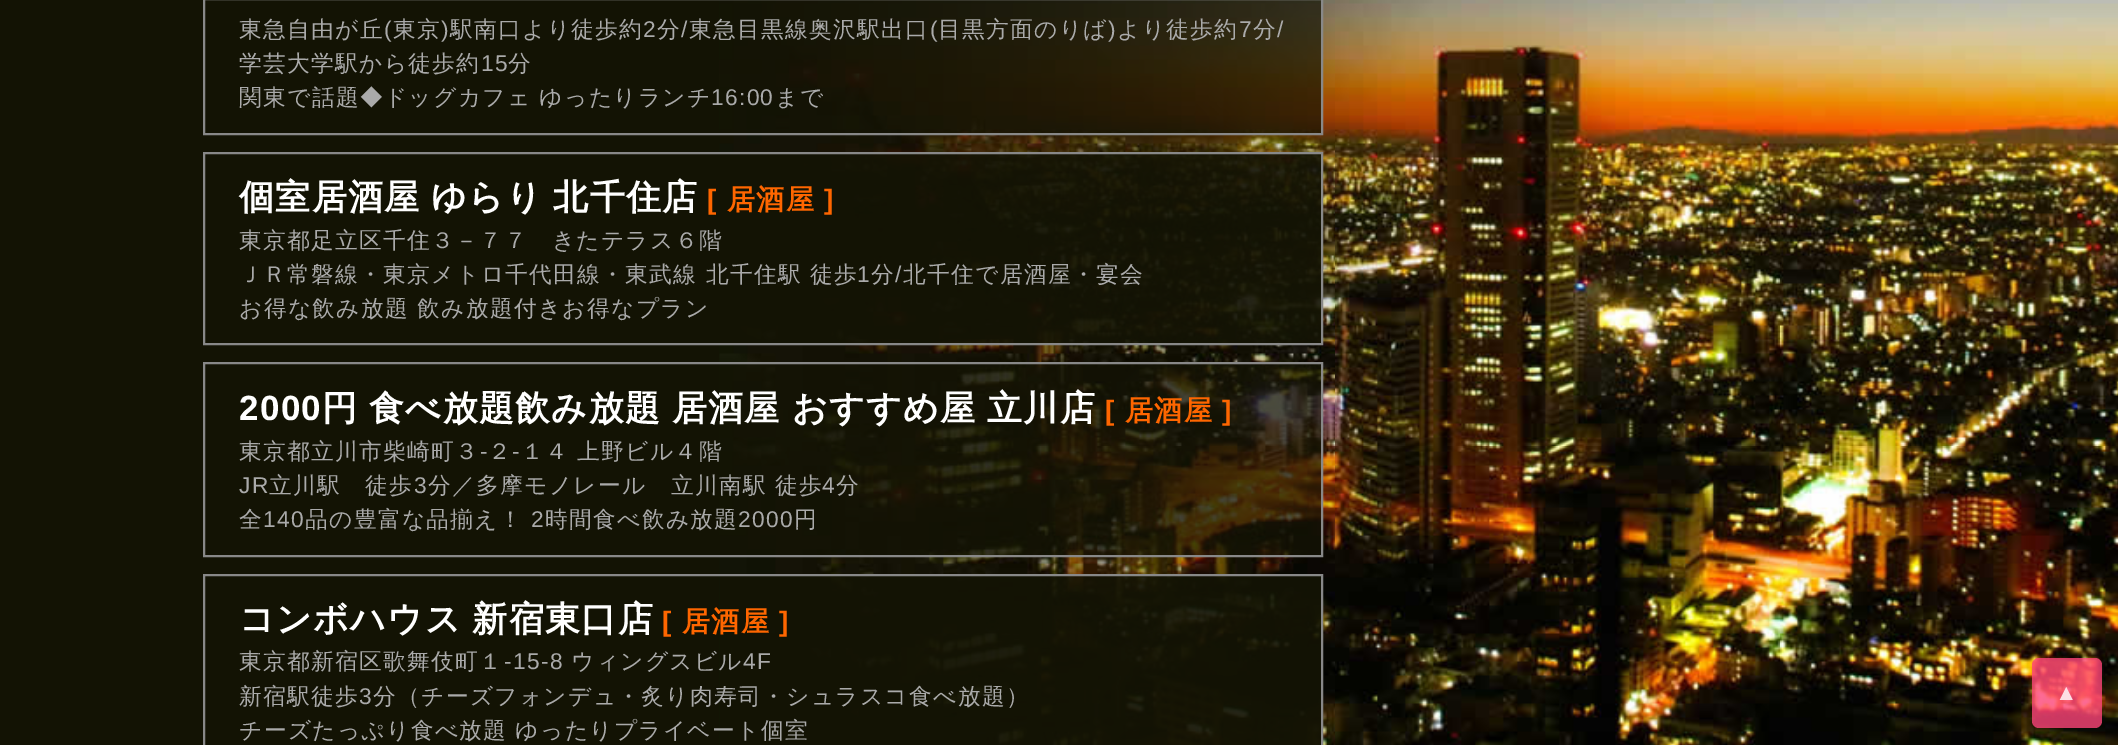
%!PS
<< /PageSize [2118 745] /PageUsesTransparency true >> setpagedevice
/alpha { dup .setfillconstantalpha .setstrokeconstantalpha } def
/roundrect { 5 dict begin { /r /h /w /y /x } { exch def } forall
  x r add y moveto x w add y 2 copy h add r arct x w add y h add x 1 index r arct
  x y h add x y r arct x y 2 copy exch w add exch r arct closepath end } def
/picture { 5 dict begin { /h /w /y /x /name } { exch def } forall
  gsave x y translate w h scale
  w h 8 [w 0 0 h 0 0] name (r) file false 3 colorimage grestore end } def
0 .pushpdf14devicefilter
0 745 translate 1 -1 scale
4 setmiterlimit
0.075 0.075 0.016 setrgbcolor
0 0 2118 745 rectfill
(img1.rgb) 719 0 1399 745 picture
0.7 alpha
720 0 601 133 rectfill
1 alpha
0.533 setgray
2 setlinewidth
204 -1 1118 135 rectstroke
/WenQuanYiZenHei-Medium [22.75 0 0 -22.75 0 0] selectfont
0.667 setgray
239 37 moveto 1.3 0 (東急自由が丘) ashow
/LiberationSans-Regular [22.75 0 0 -22.75 0 0] selectfont
384 37 moveto 1.3 0 (\() ashow
/WenQuanYiZenHei-Medium [22.75 0 0 -22.75 0 0] selectfont
393 37 moveto 1.3 0 (東京) ashow
/LiberationSans-Regular [22.75 0 0 -22.75 0 0] selectfont
441 37 moveto 1.3 0 (\)) ashow
/WenQuanYiZenHei-Medium [22.75 0 0 -22.75 0 0] selectfont
450 37 moveto 1.3 0 (駅南口より徒歩約) ashow
/LiberationSans-Regular [22.75 0 0 -22.75 0 0] selectfont
643 37 moveto 1.3 0 (2) ashow
/WenQuanYiZenHei-Medium [22.75 0 0 -22.75 0 0] selectfont
657 37 moveto 1.3 0 (分) ashow
/LiberationSans-Regular [22.75 0 0 -22.75 0 0] selectfont
681 37 moveto 1.3 0 (/) ashow
/WenQuanYiZenHei-Medium [22.75 0 0 -22.75 0 0] selectfont
689 37 moveto 1.3 0 (東急目黒線奥沢駅出口) ashow
/LiberationSans-Regular [22.75 0 0 -22.75 0 0] selectfont
930 37 moveto 1.3 0 (\() ashow
/WenQuanYiZenHei-Medium [22.75 0 0 -22.75 0 0] selectfont
938 37 moveto 1.3 0 (目黒方面のりば) ashow
/LiberationSans-Regular [22.75 0 0 -22.75 0 0] selectfont
1108 37 moveto 1.3 0 (\)) ashow
/WenQuanYiZenHei-Medium [22.75 0 0 -22.75 0 0] selectfont
1117 37 moveto 1.3 0 (より徒歩約) ashow
/LiberationSans-Regular [22.75 0 0 -22.75 0 0] selectfont
1239 37 moveto 1.3 0 (7) ashow
/WenQuanYiZenHei-Medium [22.75 0 0 -22.75 0 0] selectfont
1253 37 moveto 1.3 0 (分) ashow
/LiberationSans-Regular [22.75 0 0 -22.75 0 0] selectfont
1277 37 moveto 1.3 0 (/) ashow
/WenQuanYiZenHei-Medium [22.75 0 0 -22.75 0 0] selectfont
239 71 moveto 1.3 0 (学芸大学駅から徒歩約) ashow
/LiberationSans-Regular [22.75 0 0 -22.75 0 0] selectfont
481 71 moveto 1.3 0 (15) ashow
/WenQuanYiZenHei-Medium [22.75 0 0 -22.75 0 0] selectfont
508 71 moveto 1.3 0 (分) ashow
239 105 moveto 1.3 0 (関東で話題◆ドッグカフェ ゆったりランチ) ashow
/LiberationSans-Regular [22.75 0 0 -22.75 0 0] selectfont
711 105 moveto 1.3 0 (16:00) ashow
/WenQuanYiZenHei-Medium [22.75 0 0 -22.75 0 0] selectfont
775 105 moveto 1.3 0 (まで) ashow
0.9 alpha
0.075 0.075 0.016 setrgbcolor
719 154 602 189 rectfill
1 alpha
0.533 setgray
204 153 1118 191 rectstroke
/WenQuanYiZenHei-Bold [35 0 0 -35 0 0] selectfont
1 setgray
239 209 moveto -1 0 32 1.3 0 (個室居酒屋 ゆらり 北千住店) awidthshow
/LiberationSans-Bold [28 0 0 -28 0 0] selectfont
1 0.4 0 setrgbcolor
707 209 moveto 1.3 0 ([) ashow
/WenQuanYiZenHei-Bold [28 0 0 -28 0 0] selectfont
727 209 moveto 1.3 0 (居酒屋) ashow
/LiberationSans-Bold [28 0 0 -28 0 0] selectfont
824 209 moveto 1.3 0 (]) ashow
/WenQuanYiZenHei-Medium [22.75 0 0 -22.75 0 0] selectfont
0.667 setgray
239 248 moveto 1.3 0 (東京都足立区千住３－７７　きたテラス６階) ashow
239 282 moveto 1.3 0 (ＪＲ常磐線・東京メトロ千代田線・東武線 北千住駅 徒歩) ashow
/LiberationSans-Regular [22.75 0 0 -22.75 0 0] selectfont
857 282 moveto 1.3 0 (1) ashow
/WenQuanYiZenHei-Medium [22.75 0 0 -22.75 0 0] selectfont
871 282 moveto 1.3 0 (分) ashow
/LiberationSans-Regular [22.75 0 0 -22.75 0 0] selectfont
895 282 moveto 1.3 0 (/) ashow
/WenQuanYiZenHei-Medium [22.75 0 0 -22.75 0 0] selectfont
903 282 moveto 1.3 0 (北千住で居酒屋・宴会) ashow
239 316 moveto 1.3 0 (お得な飲み放題 飲み放題付きお得なプラン) ashow
0.7 alpha
0.075 0.075 0.016 setrgbcolor
719 364 602 191 rectfill
1 alpha
0.533 setgray
204 363 1118 193 rectstroke
/LiberationSans-Bold [35 0 0 -35 0 0] selectfont
1 setgray
239 420 moveto 1.3 0 (2000) ashow
/WenQuanYiZenHei-Bold [35 0 0 -35 0 0] selectfont
322 420 moveto -1 0 32 1.3 0 (円 食べ放題飲み放題 居酒屋 おすすめ屋 立川店) awidthshow
/LiberationSans-Bold [28 0 0 -28 0 0] selectfont
1 0.4 0 setrgbcolor
1105 420 moveto 1.3 0 ([) ashow
/WenQuanYiZenHei-Bold [28 0 0 -28 0 0] selectfont
1125 420 moveto 1.3 0 (居酒屋) ashow
/LiberationSans-Bold [28 0 0 -28 0 0] selectfont
1222 420 moveto 1.3 0 (]) ashow
/WenQuanYiZenHei-Medium [22.75 0 0 -22.75 0 0] selectfont
0.667 setgray
239 459 moveto 1.3 0 (東京都立川市柴崎町３) ashow
/LiberationSans-Regular [22.75 0 0 -22.75 0 0] selectfont
480 459 moveto 1.3 0 (-) ashow
/WenQuanYiZenHei-Medium [22.75 0 0 -22.75 0 0] selectfont
488 459 moveto 1.3 0 (２) ashow
/LiberationSans-Regular [22.75 0 0 -22.75 0 0] selectfont
512 459 moveto 1.3 0 (-) ashow
/WenQuanYiZenHei-Medium [22.75 0 0 -22.75 0 0] selectfont
521 459 moveto 1.3 0 (１４ 上野ビル４階) ashow
/LiberationSans-Regular [22.75 0 0 -22.75 0 0] selectfont
239 493 moveto 1.3 0 (JR) ashow
/WenQuanYiZenHei-Medium [22.75 0 0 -22.75 0 0] selectfont
269 493 moveto 1.3 0 (立川駅　徒歩) ashow
/LiberationSans-Regular [22.75 0 0 -22.75 0 0] selectfont
414 493 moveto 1.3 0 (3) ashow
/WenQuanYiZenHei-Medium [22.75 0 0 -22.75 0 0] selectfont
428 493 moveto 1.3 0 (分／多摩モノレール　立川南駅 徒歩) ashow
/LiberationSans-Regular [22.75 0 0 -22.75 0 0] selectfont
822 493 moveto 1.3 0 (4) ashow
/WenQuanYiZenHei-Medium [22.75 0 0 -22.75 0 0] selectfont
836 493 moveto 1.3 0 (分) ashow
239 527 moveto 1.3 0 (全) ashow
/LiberationSans-Regular [22.75 0 0 -22.75 0 0] selectfont
263 527 moveto 1.3 0 (140) ashow
/WenQuanYiZenHei-Medium [22.75 0 0 -22.75 0 0] selectfont
305 527 moveto 1.3 0 (品の豊富な品揃え！) ashow
/LiberationSans-Regular [22.75 0 0 -22.75 0 0] selectfont
531 527 moveto 1.3 0 (2) ashow
/WenQuanYiZenHei-Medium [22.75 0 0 -22.75 0 0] selectfont
545 527 moveto 1.3 0 (時間食べ飲み放題) ashow
/LiberationSans-Regular [22.75 0 0 -22.75 0 0] selectfont
738 527 moveto 1.3 0 (2000) ashow
/WenQuanYiZenHei-Medium [22.75 0 0 -22.75 0 0] selectfont
794 527 moveto 1.3 0 (円) ashow
0.9 alpha
0.075 0.075 0.016 setrgbcolor
720 576 601 169 rectfill
1 alpha
0.533 setgray
204 575 1118 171 rectstroke
/WenQuanYiZenHei-Bold [35 0 0 -35 0 0] selectfont
1 setgray
239 631 moveto -1 0 32 1.3 0 (コンボハウス 新宿東口店) awidthshow
/LiberationSans-Bold [28 0 0 -28 0 0] selectfont
1 0.4 0 setrgbcolor
662 631 moveto 1.3 0 ([) ashow
/WenQuanYiZenHei-Bold [28 0 0 -28 0 0] selectfont
682 631 moveto 1.3 0 (居酒屋) ashow
/LiberationSans-Bold [28 0 0 -28 0 0] selectfont
779 631 moveto 1.3 0 (]) ashow
/WenQuanYiZenHei-Medium [22.75 0 0 -22.75 0 0] selectfont
0.667 setgray
239 669 moveto 1.3 0 (東京都新宿区歌舞伎町１) ashow
/LiberationSans-Regular [22.75 0 0 -22.75 0 0] selectfont
504 669 moveto 1.3 0 (-15-8) ashow
/WenQuanYiZenHei-Medium [22.75 0 0 -22.75 0 0] selectfont
571 669 moveto 1.3 0 (ウィングスビル) ashow
/LiberationSans-Regular [22.75 0 0 -22.75 0 0] selectfont
743 669 moveto 1.3 0 (4F) ashow
/WenQuanYiZenHei-Medium [22.75 0 0 -22.75 0 0] selectfont
239 704 moveto 1.3 0 (新宿駅徒歩) ashow
/LiberationSans-Regular [22.75 0 0 -22.75 0 0] selectfont
359 704 moveto 1.3 0 (3) ashow
/WenQuanYiZenHei-Medium [22.75 0 0 -22.75 0 0] selectfont
373 704 moveto 1.3 0 (分（チーズフォンデュ・炙り肉寿司・シュラスコ食べ放題）) ashow
239 738 moveto 1.3 0 (チーズたっぷり食べ放題 ゆったりプライベート個室) ashow
0.8 alpha
0.992 0.271 0.475 setrgbcolor
2032 658 70 70 7 roundrect fill
/LiberationSans-Regular [22.75 0 0 -22.75 0 0] selectfont
1 alpha
0.992 0.875 0.894 setrgbcolor
2055 700 moveto 1.3 0 (▲) ashow
.poppdf14devicefilter showpage
